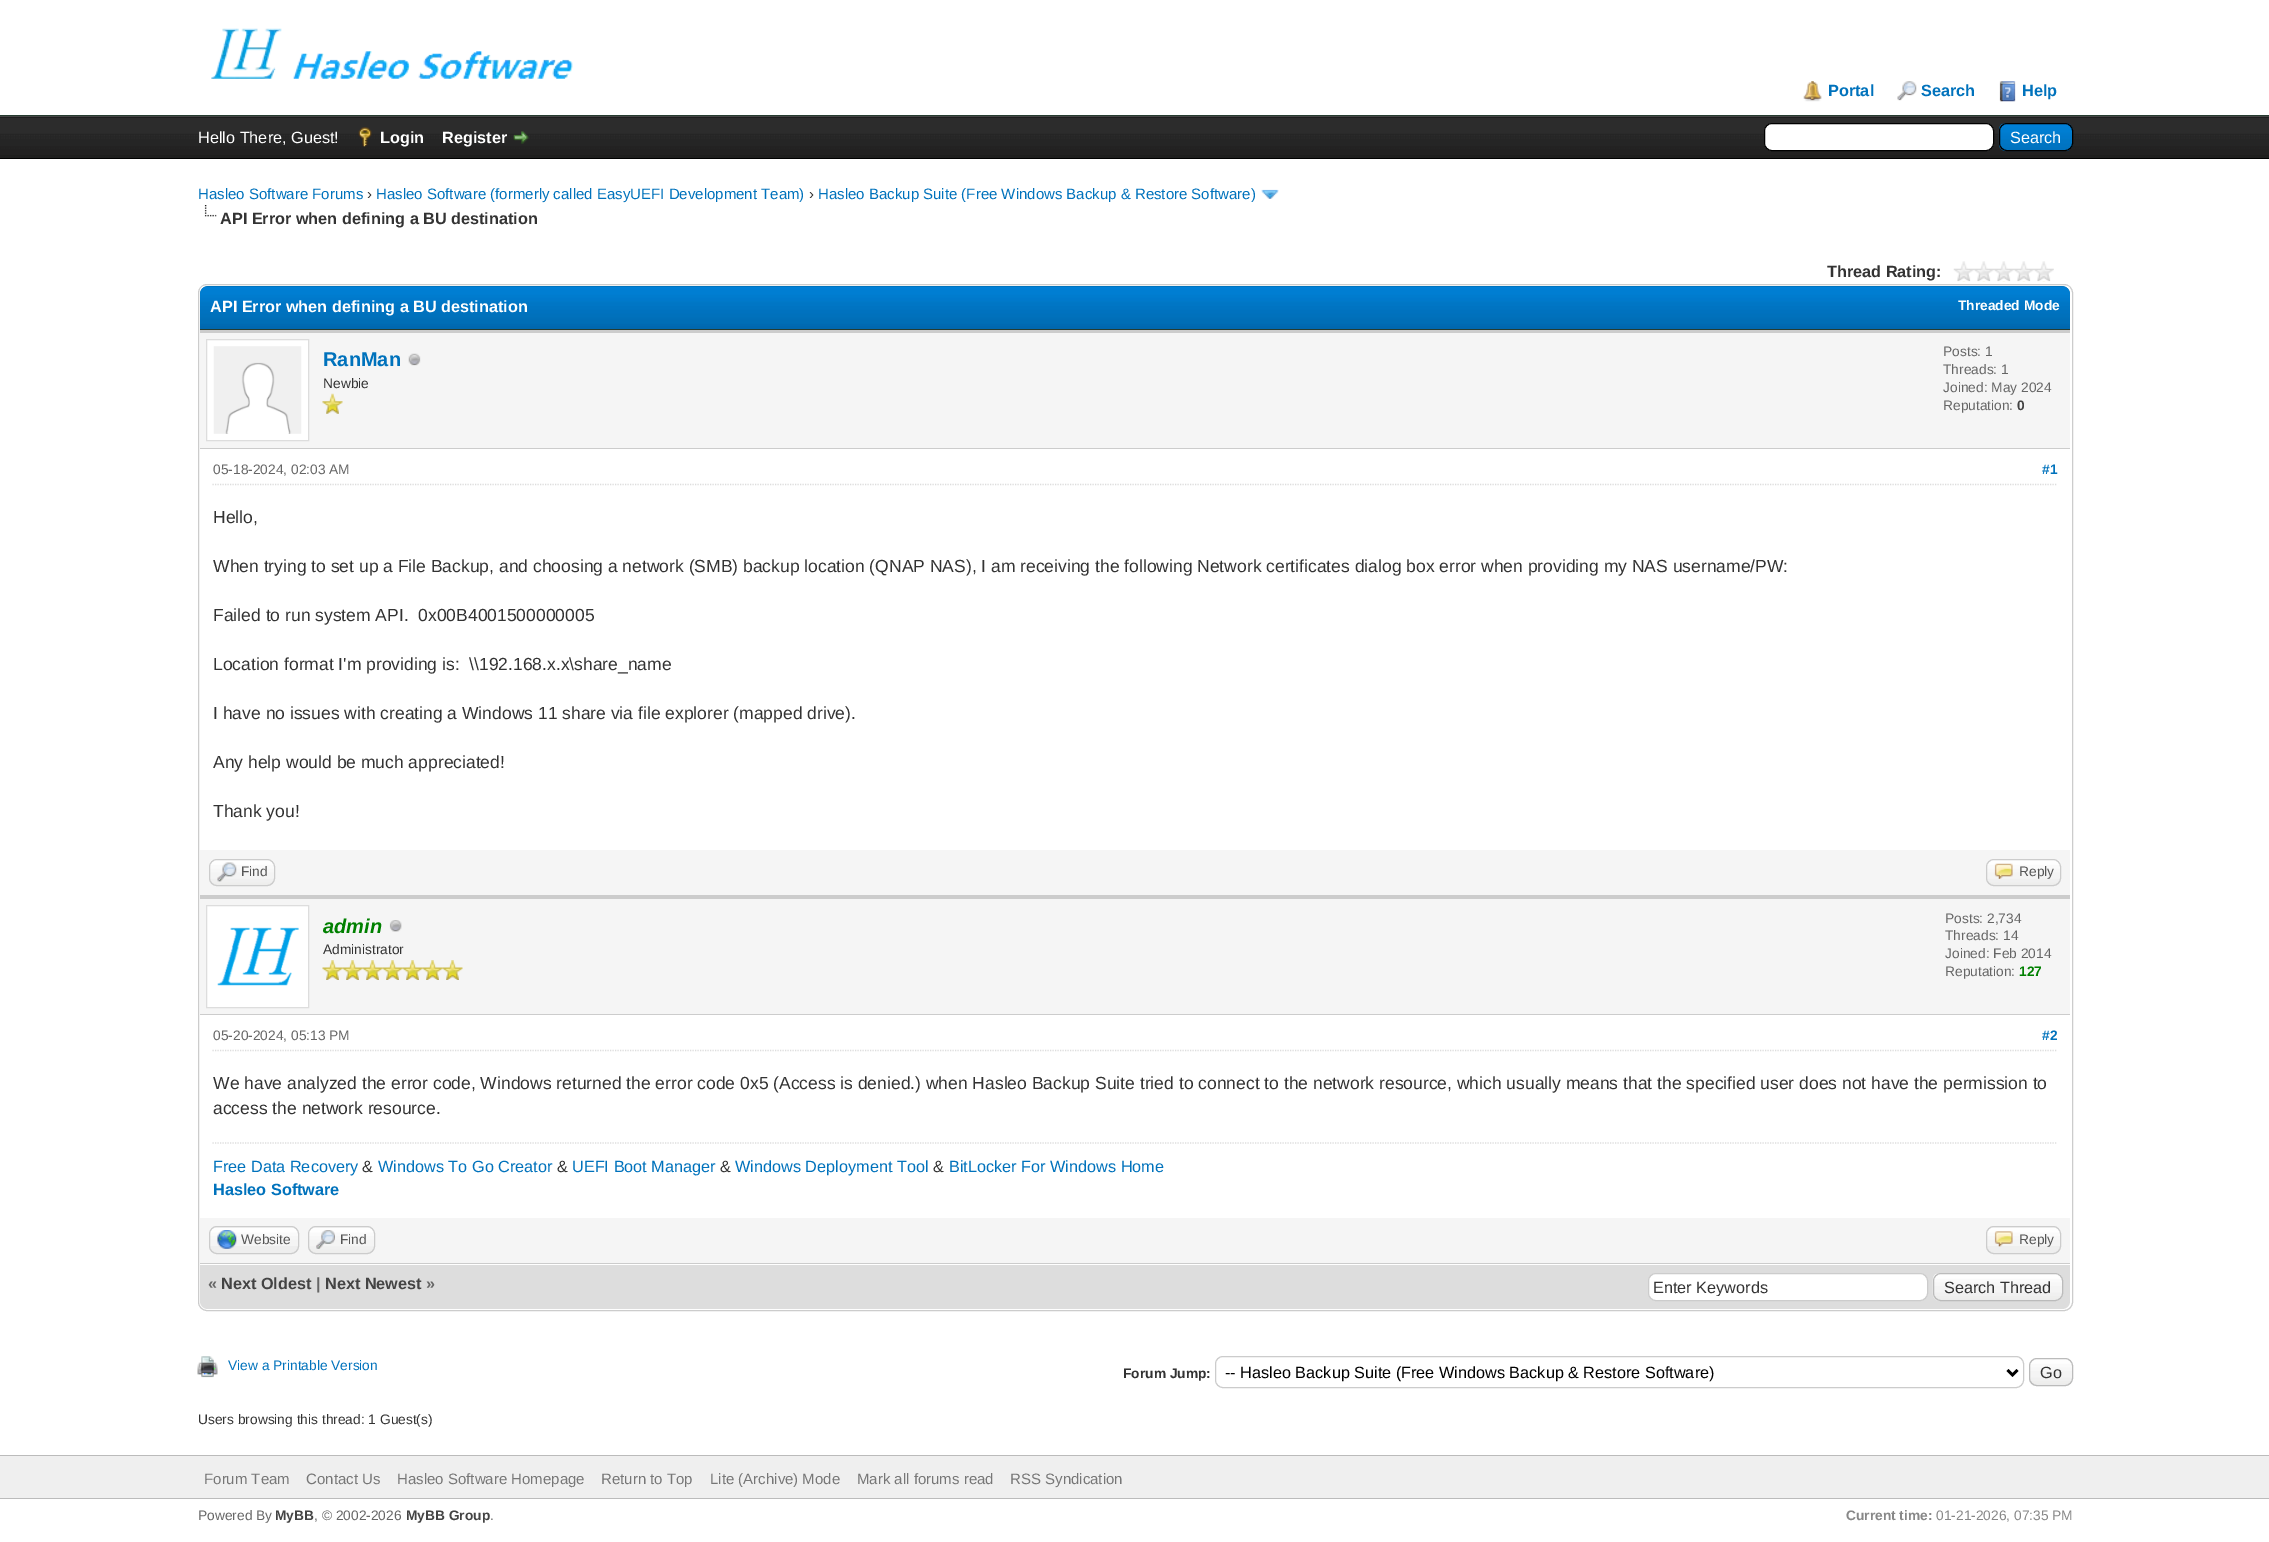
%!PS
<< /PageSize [2269 1542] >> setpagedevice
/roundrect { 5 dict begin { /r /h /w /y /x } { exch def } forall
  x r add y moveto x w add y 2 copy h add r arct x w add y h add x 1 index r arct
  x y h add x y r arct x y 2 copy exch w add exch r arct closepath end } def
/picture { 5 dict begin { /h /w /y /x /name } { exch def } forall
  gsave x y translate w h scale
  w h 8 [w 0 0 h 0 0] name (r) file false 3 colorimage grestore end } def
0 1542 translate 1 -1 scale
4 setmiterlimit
1 setgray
0 0 2269 1542 rectfill
0.149 0.235 0.188 setrgbcolor
0 115 2269 1 rectfill
(img1.rgb) 211 28 362 51 picture
(img2.rgb) 1803 81 19 21 picture
/LiberationSans-Bold [16.25 0 0 -16.25 0 0] selectfont
0 0.447 0.737 setrgbcolor
1828 96 moveto (Portal) show
(img3.rgb) 1897 81 20 20 picture
1921 96 moveto (Search) show
(img4.rgb) 1999 81 17 21 picture
2022 96 moveto (Help) show
0.059 setgray
0 117 2269 1 rectfill
(img5.rgb) 0 117 2269 41 picture
0.267 setgray
0 116 2269 1 rectfill
0 setgray
0 158 2269 1 rectfill
/LiberationSans-Regular [16.25 0 0 -16.25 0 0] selectfont
1 setgray
198 143 moveto (Hello There, Guest!) show
(img6.rgb) 358 127 14 20 picture
/LiberationSans-Bold [16.25 0 0 -16.25 0 0] selectfont
380 143 moveto (Login) show
442 143 moveto (Register) show
(img7.rgb) 513 131 16 13 picture
1764.5 123.5 229 27 7.5 roundrect gsave fill grestore
0 setgray
stroke
(img8.rgb) 1998 123 75 29 picture
1999.5 123.5 73 27 7.5 roundrect stroke
/LiberationSans-Regular [16.25 0 0 -16.25 0 0] selectfont
1 setgray
2010 143 moveto (Search) show
/LiberationSans-Regular [15 0 0 -15 0 0] selectfont
0 0.447 0.737 setrgbcolor
198 199 moveto (Hasleo Software Forums) show
0.2 setgray
367 199 moveto (›) show
0 0.447 0.737 setrgbcolor
376 199 moveto (Hasleo Software \(formerly called EasyUEFI Development Team\)) show
0.2 setgray
809 199 moveto (›) show
0 0.447 0.737 setrgbcolor
818 199 moveto (Hasleo Backup Suite \(Free Windows Backup & Restore Software\)) show
(img9.rgb) 1261 189 18 10 picture
(img10.rgb) 204 205 13 12 picture
/LiberationSans-Bold [16.25 0 0 -16.25 0 0] selectfont
0.2 setgray
220 224 moveto (API Error when defining a BU destination) show
1827 277 moveto (Thread Rating:) show
(img11.rgb) 1953 261 101 21 picture
0.8 setgray
198.5 284.5 1874 1026 8.5 roundrect stroke
0 0.4 0.635 setrgbcolor
newpath 208 286 moveto 2062 286 lineto 2066.5 286 2070 289.5 2070 294 curveto 2070 330 lineto 200 330 lineto 200 294 lineto 200 289.5 203.5 286 208 286 curveto closepath fill
(img12.rgb) 200 286 1870 43 picture
0.149 0.235 0.188 setrgbcolor
200 329 1870 1 rectfill
1 setgray
210 312 moveto (API Error when defining a BU destination) show
/LiberationSans-Bold [13.75 0 0 -13.75 0 0] selectfont
1958 310 moveto (Threaded Mode) show
0.961 setgray
200 333 1870 115 rectfill
0.8 setgray
200 330 1870 3 rectfill
200 448 1870 1 rectfill
1 setgray
newpath 206.5 339.5 moveto 308.5 339.5 lineto 308.5 440.5 lineto 206.5 440.5 lineto closepath gsave fill grestore
0.867 setgray
stroke
(img13.rgb) 213 346 89 88 picture
/LiberationSans-Bold [20 0 0 -20 0 0] selectfont
0 0.447 0.737 setrgbcolor
323 366 moveto (RanMan) show
(img14.rgb) 408 353 13 13 picture
/LiberationSans-Regular [13.75 0 0 -13.75 0 0] selectfont
0.2 setgray
323 388 moveto (Newbie) show
(img15.rgb) 322 393 21 21 picture
0.4 setgray
1943 356 moveto (Posts: 1) show
1943 374 moveto (Threads: 1) show
1943 392 moveto (Joined: May 2024) show
1943 410 moveto (Reputation:) show
/LiberationSans-Bold [13.75 0 0 -13.75 0 0] selectfont
0.267 setgray
2017 410 moveto (0) show
0.867 setgray
1.2 setlinewidth
[1.25 1.25] 0 setdash
newpath 212.5 484.5 moveto 2057.5 484.5 lineto stroke
/LiberationSans-Regular [13.75 0 0 -13.75 0 0] selectfont
0.4 setgray
213 474 moveto (05-18-2024, 02:03 AM) show
/LiberationSans-Bold [13.75 0 0 -13.75 0 0] selectfont
0 0.447 0.737 setrgbcolor
2042 474 moveto (#1) show
/LiberationSans-Regular [17.5 0 0 -17.5 0 0] selectfont
0.2 setgray
213 523 moveto (Hello,) show
213 572 moveto (When trying to set up a File Backup, and choosing a network \(SMB\) backup location \(QNAP NAS\), I am receiving the following Network certificates dialog box error when providing my NAS username/PW:) show
213 621 moveto (Failed to run system API.  0x00B4001500000005) show
213 670 moveto (Location format I'm providing is:  \\\\192.168.x.x\\share_name) show
213 719 moveto (I have no issues with creating a Windows 11 share via file explorer \(mapped drive\).) show
213 768 moveto (Any help would be much appreciated!) show
213 817 moveto (Thank you!) show
0.961 setgray
200 850 1870 45 rectfill
0.8 setgray
200 895 1870 4 rectfill
(img16.rgb) 209 860 66 26 picture
1 setlinewidth
[] 0 setdash
209.5 859.5 65 26 7.5 roundrect stroke
(img17.rgb) 217 862 20 20 picture
/LiberationSans-Regular [13.75 0 0 -13.75 0 0] selectfont
0.333 setgray
241 876 moveto (Find) show
(img18.rgb) 1986 860 75 26 picture
0.8 setgray
1986.5 859.5 74 26 7.5 roundrect stroke
(img19.rgb) 1994 863 19 16 picture
0.333 setgray
2019 876 moveto (Reply) show
0.961 setgray
200 899 1870 115 rectfill
0.8 setgray
200 1014 1870 1 rectfill
1 setgray
newpath 206.5 905.5 moveto 308.5 905.5 lineto 308.5 1007.5 lineto 206.5 1007.5 lineto closepath gsave fill grestore
0.867 setgray
stroke
(img20.rgb) 217 927 82 59 picture
/LiberationSans-BoldItalic [20 0 0 -20 0 0] selectfont
0 0.502 0 setrgbcolor
323 933 moveto (admin) show
(img21.rgb) 389 920 13 12 picture
/LiberationSans-Regular [13.75 0 0 -13.75 0 0] selectfont
0.2 setgray
323 954 moveto (Administrator) show
(img22.rgb) 322 960 21 20 picture
(img23.rgb) 342 960 21 20 picture
(img23.rgb) 362 960 21 20 picture
(img23.rgb) 382 960 21 20 picture
(img23.rgb) 402 960 21 20 picture
(img24.rgb) 422 960 21 20 picture
(img24.rgb) 442 960 21 20 picture
0.4 setgray
1945 923 moveto (Posts: 2,734) show
1945 940 moveto (Threads: 14) show
1945 958 moveto (Joined: Feb 2014) show
1945 976 moveto (Reputation:) show
/LiberationSans-Bold [13.75 0 0 -13.75 0 0] selectfont
0 0.502 0 setrgbcolor
2019 976 moveto (127) show
0.867 setgray
1.2 setlinewidth
[1.25 1.25] 0 setdash
newpath 212.5 1050.5 moveto 2057.5 1050.5 lineto stroke
/LiberationSans-Regular [13.75 0 0 -13.75 0 0] selectfont
0.4 setgray
213 1040 moveto (05-20-2024, 05:13 PM) show
/LiberationSans-Bold [13.75 0 0 -13.75 0 0] selectfont
0 0.447 0.737 setrgbcolor
2042 1040 moveto (#2) show
/LiberationSans-Regular [17.5 0 0 -17.5 0 0] selectfont
0.2 setgray
213 1089 moveto (We have analyzed the error code, Windows returned the error code 0x5 \(Access is denied.\) when Hasleo Backup Suite tried to connect to the network resource, which usually means that the specified user does not have the permission to) show
213 1114 moveto (access the network resource.) show
0.867 setgray
newpath 212.5 1143 moveto 2057.5 1143 lineto stroke
/LiberationSans-Regular [16.25 0 0 -16.25 0 0] selectfont
0 0.447 0.737 setrgbcolor
213 1172 moveto (Free Data Recovery) show
0.2 setgray
362 1172 moveto (&) show
0 0.447 0.737 setrgbcolor
378 1172 moveto (Windows To Go Creator) show
0.2 setgray
557 1172 moveto (&) show
0 0.447 0.737 setrgbcolor
572 1172 moveto (UEFI Boot Manager) show
0.2 setgray
720 1172 moveto (&) show
0 0.447 0.737 setrgbcolor
735 1172 moveto (Windows Deployment Tool) show
0.2 setgray
933 1172 moveto (&) show
0 0.447 0.737 setrgbcolor
949 1172 moveto (BitLocker For Windows Home) show
/LiberationSans-Bold [16.25 0 0 -16.25 0 0] selectfont
213 1195 moveto (Hasleo Software) show
0.961 setgray
200 1218 1870 45 rectfill
0.8 setgray
200 1263 1870 1 rectfill
0.933 setgray
209 1226 90 28 8 roundrect fill
(img25.rgb) 209 1227 90 19 picture
0.8 setgray
1 setlinewidth
[] 0 setdash
209.5 1226.5 89 27 7.5 roundrect stroke
(img26.rgb) 217 1230 20 19 picture
/LiberationSans-Regular [13.75 0 0 -13.75 0 0] selectfont
0.333 setgray
241 1244 moveto (Website) show
0.933 setgray
308 1226 67 28 8 roundrect fill
(img27.rgb) 308 1227 67 26 picture
0.8 setgray
308.5 1226.5 66 27 7.5 roundrect stroke
(img28.rgb) 316 1230 19 19 picture
0.333 setgray
340 1244 moveto (Find) show
0.933 setgray
1986 1226 75 28 8 roundrect fill
(img29.rgb) 1986 1227 75 19 picture
0.8 setgray
1986.5 1226.5 74 27 7.5 roundrect stroke
(img30.rgb) 1994 1231 19 16 picture
0.333 setgray
2019 1244 moveto (Reply) show
0.867 setgray
newpath 200 1264 moveto 2070 1264 lineto 2070 1301 lineto 2070 1305.5 2066.5 1309 2062 1309 curveto 208 1309 lineto 203.5 1309 200 1305.5 200 1301 curveto closepath fill
1 setgray
200 1264 1870 1 rectfill
/LiberationSans-Bold [16.25 0 0 -16.25 0 0] selectfont
0.4 setgray
208 1289 moveto («) show
0.267 setgray
221 1289 moveto (Next Oldest) show
0.4 setgray
316 1289 moveto (|) show
0.267 setgray
325 1289 moveto (Next Newest) show
0.4 setgray
426 1289 moveto (») show
1 setgray
1648.5 1273.5 279 27 7.5 roundrect gsave fill grestore
0.8 setgray
stroke
gsave
1653 1278 270 18 rectclip
/LiberationSans-Regular [16.25 0 0 -16.25 0 0] selectfont
0.2 setgray
1653 1293 moveto (Enter Keywords) show
grestore
(img31.rgb) 1932 1273 130 28 picture
0.733 setgray
1933.5 1273.5 129 27 7.5 roundrect stroke
/LiberationSans-Regular [16.25 0 0 -16.25 0 0] selectfont
0.2 setgray
1944 1293 moveto (Search Thread) show
(img32.rgb) 197 1356 21 22 picture
/LiberationSans-Regular [13.75 0 0 -13.75 0 0] selectfont
0 0.447 0.737 setrgbcolor
228 1370 moveto (View a Printable Version) show
/LiberationSans-Bold [13.75 0 0 -13.75 0 0] selectfont
0.2 setgray
1123 1378 moveto (Forum Jump:) show
0.8 setgray
1215.5 1356.5 808 31 7.5 roundrect stroke
0 setgray
2.5 setlinewidth
newpath 2007.5 1370 moveto 2012.5 1375 lineto 2017.5 1370 lineto stroke
/LiberationSans-Regular [16.25 0 0 -16.25 0 0] selectfont
1225 1378 moveto (-- Hasleo Backup Suite \(Free Windows Backup & Restore Software\)) show
(img33.rgb) 2029 1358 43 28 picture
0.733 setgray
1 setlinewidth
2029.5 1358.5 43 27 7.5 roundrect stroke
0.2 setgray
2040 1378 moveto (Go) show
/LiberationSans-Regular [13.75 0 0 -13.75 0 0] selectfont
198 1424 moveto (Users browsing this thread: 1 Guest\(s\)) show
0.937 setgray
0 1456 2269 42 rectfill
0.733 setgray
0 1455 2269 1 rectfill
0 1498 2269 1 rectfill
/LiberationSans-Regular [15 0 0 -15 0 0] selectfont
0.467 setgray
204 1484 moveto (Forum Team) show
306 1484 moveto (Contact Us) show
397 1484 moveto (Hasleo Software Homepage) show
601 1484 moveto (Return to Top) show
710 1484 moveto (Lite \(Archive\) Mode) show
857 1484 moveto (Mark all forums read) show
1010 1484 moveto (RSS Syndication) show
/LiberationSans-Regular [13.75 0 0 -13.75 0 0] selectfont
0.4 setgray
198 1520 moveto (Powered By) show
/LiberationSans-Bold [13.75 0 0 -13.75 0 0] selectfont
0.267 setgray
275 1520 moveto (MyBB) show
/LiberationSans-Regular [13.75 0 0 -13.75 0 0] selectfont
0.4 setgray
314 1520 moveto (, © 2002-2026) show
/LiberationSans-Bold [13.75 0 0 -13.75 0 0] selectfont
0.267 setgray
406 1520 moveto (MyBB Group) show
/LiberationSans-Regular [13.75 0 0 -13.75 0 0] selectfont
0.4 setgray
490 1520 moveto (.) show
/LiberationSans-Bold [13.75 0 0 -13.75 0 0] selectfont
0.533 setgray
1846 1520 moveto (Current time:) show
/LiberationSans-Regular [13.75 0 0 -13.75 0 0] selectfont
1936 1520 moveto (01-21-2026, 07:35 PM) show
showpage
